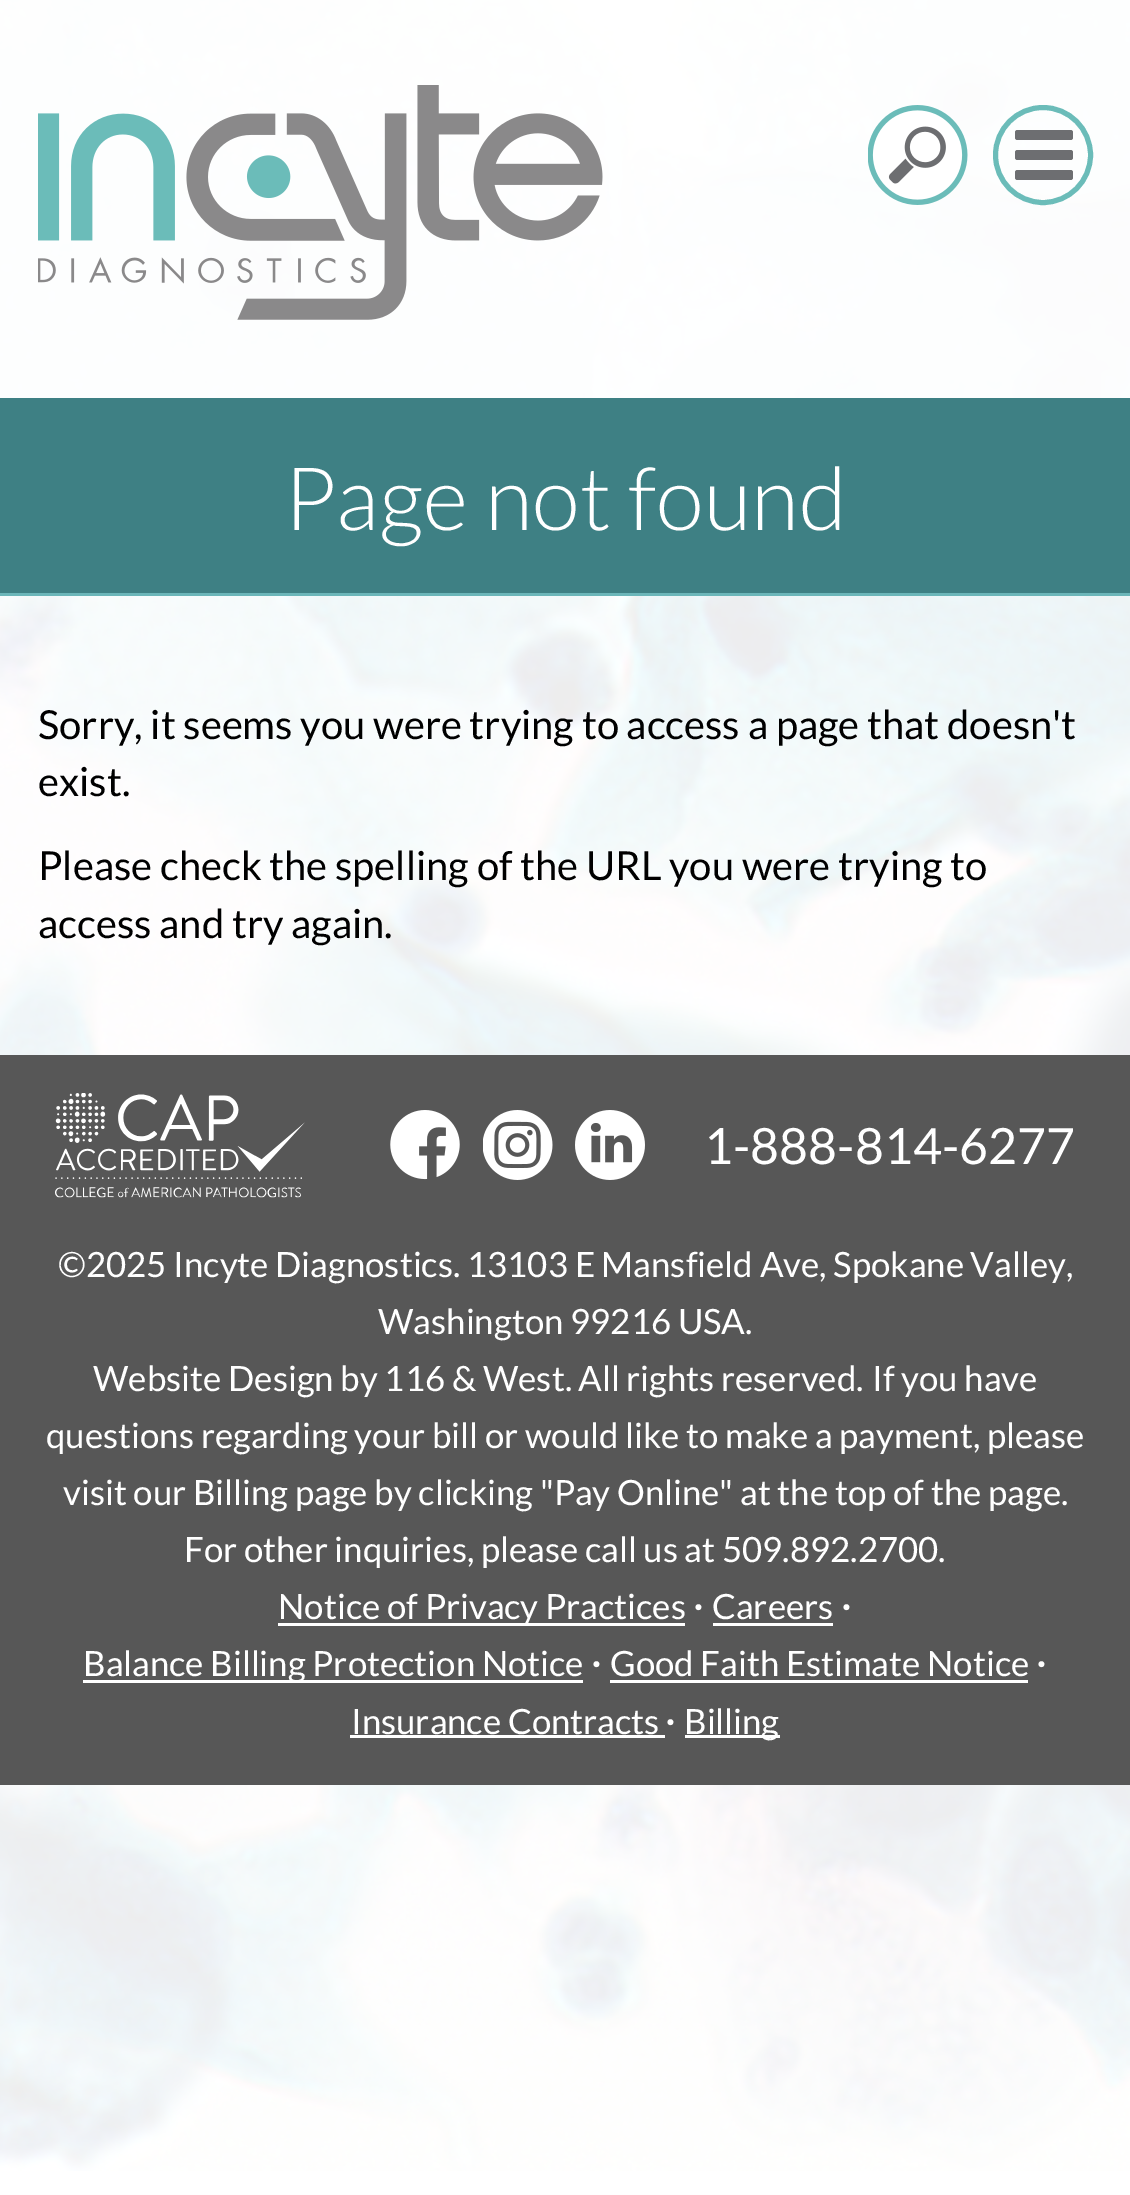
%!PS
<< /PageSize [1130 2195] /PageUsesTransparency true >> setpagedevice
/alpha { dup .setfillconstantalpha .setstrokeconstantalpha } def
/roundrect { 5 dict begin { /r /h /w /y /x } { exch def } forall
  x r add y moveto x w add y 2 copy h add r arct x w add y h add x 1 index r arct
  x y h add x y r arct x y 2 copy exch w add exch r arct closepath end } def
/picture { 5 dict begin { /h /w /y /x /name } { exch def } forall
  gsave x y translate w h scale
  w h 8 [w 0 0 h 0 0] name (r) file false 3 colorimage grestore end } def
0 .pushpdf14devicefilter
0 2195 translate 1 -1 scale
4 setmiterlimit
1 setgray
0 0 1130 2195 rectfill
(img3.rgb) 0 0 1130 2171 picture
0.84 alpha
0 0 1130 398 rectfill
1 alpha
(img1.rgb) 38 85 565 235 picture
(img2.rgb) 868 105 100 100 picture
0.42 0.737 0.725 setrgbcolor
5 setlinewidth
newpath 1043 155 47.5 0 360 arc closepath stroke
0.427 0.431 0.443 setrgbcolor
1015 130 58 10 2.5 roundrect fill
1015 150 58 10 2.5 roundrect fill
1015 170 58 10 2.5 roundrect fill
0.42 0.714 0.725 setrgbcolor
0 593 1130 3 rectfill
0.243 0.502 0.518 setrgbcolor
0 398 1130 195 rectfill
/Lato-Light [87.75 0 0 -87.75 0 0] selectfont
1 setgray
284 530 moveto (Page not found) show
/Lato-Regular [40 0 0 -40 0 0] selectfont
0 setgray
38 739 moveto (Sorry, it seems you were trying to access a page that doesn't) show
38 796 moveto (exist.) show
38 880 moveto (Please check the spelling of the URL you were trying to) show
38 938 moveto (access and try again.) show
0.341 setgray
0 1055 1130 730 rectfill
(img4.rgb) 55 1093 250 105 picture
(img5.rgb) 390 1110 70 70 picture
(img6.rgb) 483 1110 70 70 picture
(img7.rgb) 575 1110 70 70 picture
/Lato-Regular [50 0 0 -50 0 0] selectfont
1 setgray
704 1164 moveto (1-888-814-6277) show
/Lato-Regular [34.8 0 0 -34.8 0 0] selectfont
58 1277 moveto (©2025 Incyte Diagnostics. 13103 E Mansfield Ave, Spokane Valley,) show
378 1334 moveto (Washington 99216 USA.) show
93 1391 moveto (Website Design by 116 & West.) show
578 1391 moveto (All rights reserved.) show
872 1391 moveto (If you have) show
46 1448 moveto (questions regarding your bill or would like to make a payment, please) show
63 1505 moveto (visit our Billing page by clicking "Pay Online" at the top of the page.) show
184 1562 moveto (For other inquiries, please call us at 509.892.2700.) show
278 1623 407 3 rectfill
278 1619 moveto (Notice of Privacy Practices) show
/Lato-Regular [40 0 0 -40 0 0] selectfont
693 1619 moveto (·) show
/Lato-Regular [34.8 0 0 -34.8 0 0] selectfont
712 1619 moveto (Careers) show
713 1623 120 3 rectfill
/Lato-Regular [40 0 0 -40 0 0] selectfont
841 1619 moveto (·) show
83 1680 500 3 rectfill
/Lato-Regular [34.8 0 0 -34.8 0 0] selectfont
83 1676 moveto (Balance Billing Protection Notice) show
/Lato-Regular [40 0 0 -40 0 0] selectfont
591 1676 moveto (·) show
/Lato-Regular [34.8 0 0 -34.8 0 0] selectfont
610 1676 moveto (Good Faith Estimate Notice) show
610 1680 418 3 rectfill
/Lato-Regular [40 0 0 -40 0 0] selectfont
1036 1676 moveto (·) show
/Lato-Regular [34.8 0 0 -34.8 0 0] selectfont
351 1734 moveto (Insurance Contracts) show
350 1735 315 3 rectfill
/Lato-Regular [40 0 0 -40 0 0] selectfont
665 1734 moveto (·) show
685 1735 95 3 rectfill
/Lato-Regular [34.8 0 0 -34.8 0 0] selectfont
684 1734 moveto (Billing) show
.poppdf14devicefilter showpage
